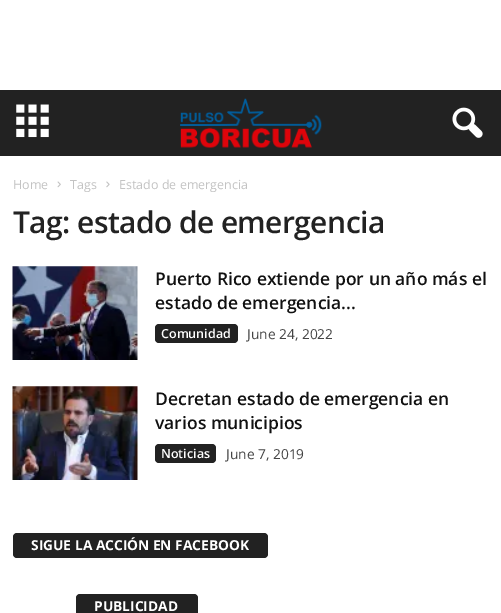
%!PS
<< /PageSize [501 613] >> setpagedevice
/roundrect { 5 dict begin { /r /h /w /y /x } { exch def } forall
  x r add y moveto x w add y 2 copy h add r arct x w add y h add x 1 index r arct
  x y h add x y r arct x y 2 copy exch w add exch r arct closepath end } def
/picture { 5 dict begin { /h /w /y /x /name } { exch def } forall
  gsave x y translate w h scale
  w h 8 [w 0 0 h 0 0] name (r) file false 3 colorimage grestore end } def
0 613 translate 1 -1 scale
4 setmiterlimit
1 setgray
0 0 501 613 rectfill
0.133 setgray
0 90 501 66 rectfill
(img1.rgb) 16 104 33 34 picture
(img2.rgb) 180 98 142 50 picture
(img3.rgb) 452 107 31 31 picture
/OpenSans-Regular [12.5 0 0 -12.5 0 0] selectfont
0.765 setgray
13 189 moveto (Home) show
(img4.rgb) 57 181 4 7 picture
70 189 moveto (Tags) show
(img5.rgb) 106 181 4 7 picture
119 189 moveto (Estado de emergencia) show
/OpenSans-SemiBold [30 0 0 -30 0 0] selectfont
0.133 setgray
13 233 moveto -0.6 0 (Tag: estado de emergencia) ashow
(img6.rgb) 12 266 126 94 picture
/OpenSans-SemiBold [17.5 0 0 -17.5 0 0] selectfont
0.067 setgray
155 285 moveto (Puerto Rico extiende por un año más el) show
155 309 moveto (estado de emergencia...) show
0.133 setgray
155 324 83 19 4 roundrect fill
/OpenSans-SemiBold [12.5 0 0 -12.5 0 0] selectfont
1 setgray
161 338 moveto (Comunidad) show
/OpenSans-Regular [13.75 0 0 -13.75 0 0] selectfont
0.267 setgray
247 339 moveto (June 24, 2022) show
(img7.rgb) 12 386 126 94 picture
/OpenSans-SemiBold [17.5 0 0 -17.5 0 0] selectfont
0.067 setgray
155 405 moveto (Decretan estado de emergencia en) show
155 429 moveto (varios municipios) show
0.133 setgray
155 444 61 19 4 roundrect fill
/OpenSans-SemiBold [12.5 0 0 -12.5 0 0] selectfont
1 setgray
161 458 moveto (Noticias) show
/OpenSans-Regular [13.75 0 0 -13.75 0 0] selectfont
0.267 setgray
226 459 moveto (June 7, 2019) show
0.133 setgray
13 533 255 25 4 roundrect fill
/OpenSans-Bold [13.75 0 0 -13.75 0 0] selectfont
1 setgray
31 550 moveto (SIGUE LA ACCIÓN EN FACEBOOK) show
0.133 setgray
76 594 122 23 4 roundrect fill
1 setgray
94 611 moveto (PUBLICIDAD) show
showpage
